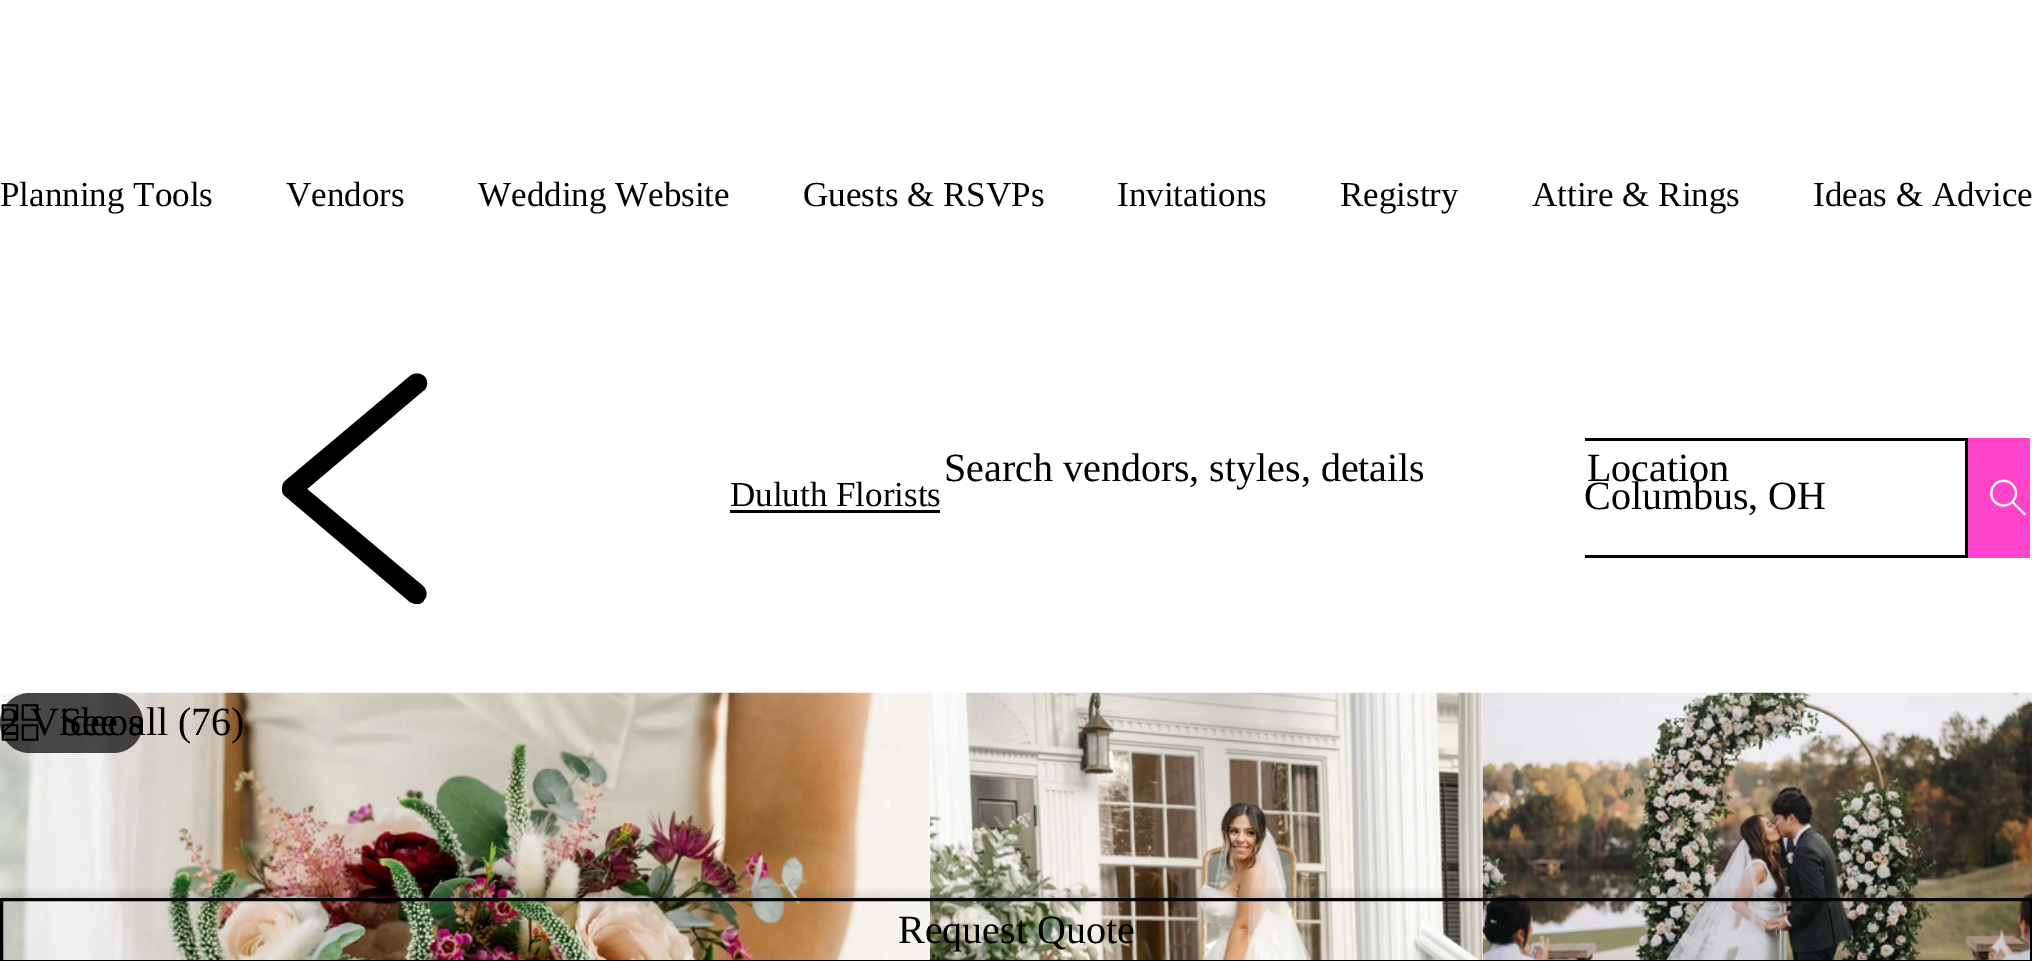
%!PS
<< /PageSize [2032 961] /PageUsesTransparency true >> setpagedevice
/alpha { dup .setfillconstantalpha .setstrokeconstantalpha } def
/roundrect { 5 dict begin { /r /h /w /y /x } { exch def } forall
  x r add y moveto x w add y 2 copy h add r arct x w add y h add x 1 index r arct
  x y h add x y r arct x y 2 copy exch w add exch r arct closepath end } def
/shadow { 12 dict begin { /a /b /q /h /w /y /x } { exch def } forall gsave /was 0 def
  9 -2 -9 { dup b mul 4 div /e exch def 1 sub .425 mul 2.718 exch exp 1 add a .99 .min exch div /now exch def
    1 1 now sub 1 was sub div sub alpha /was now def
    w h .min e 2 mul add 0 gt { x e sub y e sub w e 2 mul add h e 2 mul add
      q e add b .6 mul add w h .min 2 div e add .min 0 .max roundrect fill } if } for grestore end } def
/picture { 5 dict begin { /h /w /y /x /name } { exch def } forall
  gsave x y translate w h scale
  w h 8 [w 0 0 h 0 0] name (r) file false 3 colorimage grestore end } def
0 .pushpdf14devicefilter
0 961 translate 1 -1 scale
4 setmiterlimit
1 setgray
0 0 2032 961 rectfill
/LiberationSerif-Regular [35 0 0 -35 0 0] selectfont
0 setgray
0 206 moveto (Planning Tools) show
286 206 moveto (Vendors) show
478 206 moveto (Wedding Website) show
803 206 moveto (Guests & RSVPs) show
1117 206 moveto (Invitations) show
1340 206 moveto (Registry) show
1532 206 moveto (Attire & Rings) show
1813 206 moveto (Ideas & Advice) show
newpath 417 604 moveto 414 604 412 603 410 602 curveto 285 496 lineto 283 495 282 492 282 489 curveto 282 486 283 483 285 481 curveto 410 376 lineto 415 372 421 373 425 377 curveto 428 381 428 388 423 391 curveto 307 489 lineto 423 586 lineto 427 590 428 596 424 600 curveto 423 603 420 604 417 604 curveto closepath fill
730 506 moveto (Duluth Florists) show
730 510 210 3 rectfill
/LiberationSerif-Regular [40 0 0 -40 0 0] selectfont
944 481 moveto (Search vendors, styles, details) show
1587 481 moveto (Location) show
1585 438 383 3 rectfill
1965 438 3 120 rectfill
1585 555 383 3 rectfill
1584 509 moveto (Columbus, OH) show
1 0.267 0.796 setrgbcolor
1968 438 62 120 rectfill
(img1.rgb) 1990 479 36 37 picture
(img2.rgb) 0 692 930 268 picture
(img3.rgb) 930 692 553 268 picture
(img4.rgb) 1482 692 550 268 picture
0.7 alpha
0 setgray
0 693 143 60 30 roundrect fill
1 alpha
0 735 moveto (2 Videos) show
(img5.rgb) 1 704 38 37 picture
60 735 moveto (See all \(76\)) show
gsave
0 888 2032 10 rectclip
0.122 setgray
0 893 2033 65 0 5 0.12 shadow
grestore
3 setlinewidth
1.5 899.5 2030 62 rectstroke
898 943 moveto (Request Quote) show
.poppdf14devicefilter showpage
